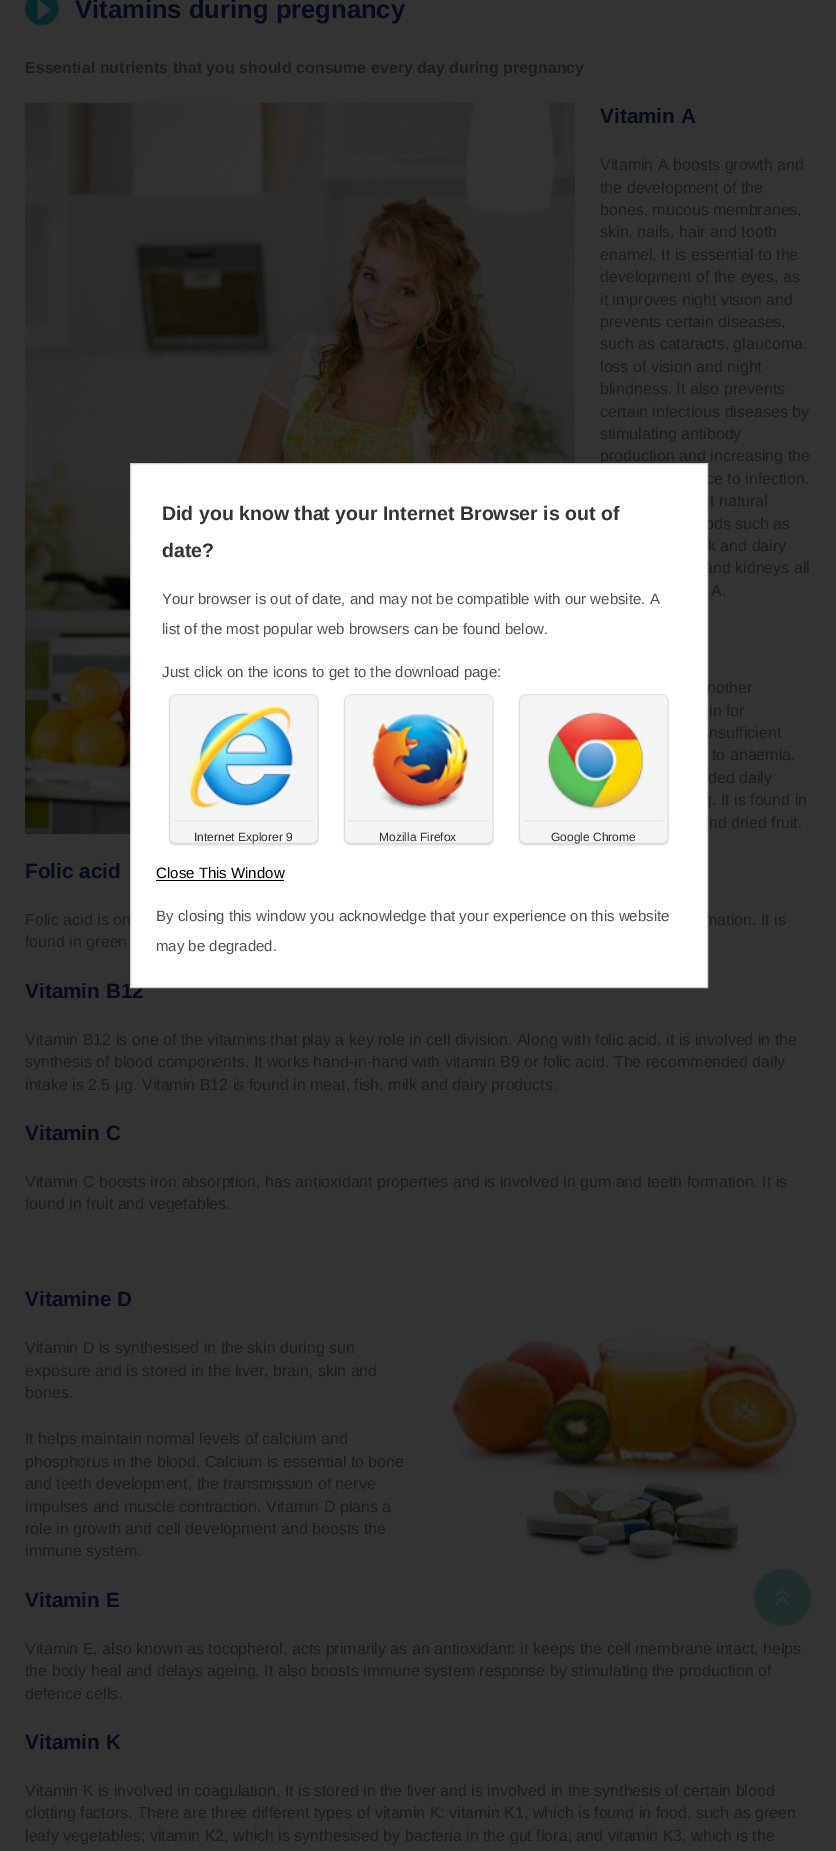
%!PS
<< /PageSize [836 1851] >> setpagedevice
/picture { 5 dict begin { /h /w /y /x /name } { exch def } forall
  gsave x y translate w h scale
  w h 8 [w 0 0 h 0 0] name (r) file false 3 colorimage grestore end } def
0 1851 translate 1 -1 scale
4 setmiterlimit
0.2 setgray
0 0 836 1851 rectfill
(img1.rgb) 25 0 34 26 picture
/LiberationSans-Bold [25.6 0 0 -25.6 0 0] selectfont
0.024 0.043 0.114 setrgbcolor
75 18 moveto (Vitamins during pregnancy) show
/LiberationSans-Bold [16 0 0 -16 0 0] selectfont
0.102 0.114 0.118 setrgbcolor
25 73 moveto (Essential nutrients that you should consume every day during pregnancy) show
(img2.rgb) 25 102 550 732 picture
/LiberationSans-Bold [20.75 0 0 -20.75 0 0] selectfont
0.024 0.043 0.114 setrgbcolor
600 123 moveto (Vitamin A) show
/LiberationSans-Regular [16 0 0 -16 0 0] selectfont
0.102 0.114 0.118 setrgbcolor
600 170 moveto (Vitamin A boosts growth and) show
600 193 moveto (the development of the) show
600 215 moveto (bones, mucous membranes,) show
600 237 moveto (skin, nails, hair and tooth) show
600 260 moveto (enamel. It is essential to the) show
600 282 moveto (development of the eyes, as) show
600 305 moveto (it improves night vision and) show
600 327 moveto (prevents certain diseases,) show
600 349 moveto (such as cataracts, glaucoma,) show
600 372 moveto (loss of vision and night) show
600 394 moveto (blindness. It also prevents) show
600 417 moveto (certain infectious diseases by) show
600 439 moveto (stimulating antibody) show
600 461 moveto (production and increasing the) show
706 484 moveto (ce to infection.) show
710 506 moveto (t natural) show
705 529 moveto (ods such as) show
708 551 moveto (k and dairy) show
704 573 moveto (and kidneys all) show
711 596 moveto (A.) show
707 693 moveto (nother) show
709 716 moveto (in for) show
709 738 moveto (nsufficient) show
712 760 moveto (to anaemia.) show
708 783 moveto (ded daily) show
703 805 moveto (g. It is found in) show
709 828 moveto (nd dried fruit.) show
/LiberationSans-Bold [20.75 0 0 -20.75 0 0] selectfont
0.024 0.043 0.114 setrgbcolor
25 878 moveto (Folic acid) show
/LiberationSans-Regular [16 0 0 -16 0 0] selectfont
0.102 0.114 0.118 setrgbcolor
25 925 moveto (Folic acid is on) show
704 925 moveto (mation. It is) show
25 947 moveto (found in green) show
/LiberationSans-Bold [20.75 0 0 -20.75 0 0] selectfont
0.024 0.043 0.114 setrgbcolor
25 998 moveto (Vitamin B12) show
/LiberationSans-Regular [16 0 0 -16 0 0] selectfont
0.102 0.114 0.118 setrgbcolor
25 1045 moveto (Vitamin B12 is one of the vitamins that play a key role in cell division. Along with folic acid, it is involved in the) show
25 1067 moveto (synthesis of blood components. It works hand-in-hand with vitamin B9 or folic acid. The recommended daily) show
25 1090 moveto (intake is 2.5 µg. Vitamin B12 is found in meat, fish, milk and dairy products.) show
/LiberationSans-Bold [20.75 0 0 -20.75 0 0] selectfont
0.024 0.043 0.114 setrgbcolor
25 1140 moveto (Vitamin C) show
/LiberationSans-Regular [16 0 0 -16 0 0] selectfont
0.102 0.114 0.118 setrgbcolor
25 1187 moveto (Vitamin C boosts iron absorption, has antioxidant properties and is involved in gum and teeth formation. It is) show
25 1209 moveto (found in fruit and vegetables.) show
/LiberationSans-Bold [20.75 0 0 -20.75 0 0] selectfont
0.024 0.043 0.114 setrgbcolor
25 1306 moveto (Vitamine D) show
(img3.rgb) 451 1334 348 230 picture
/LiberationSans-Regular [16 0 0 -16 0 0] selectfont
0.102 0.114 0.118 setrgbcolor
25 1353 moveto (Vitamin D is synthesised in the skin during sun) show
25 1376 moveto (exposure and is stored in the liver, brain, skin and) show
25 1398 moveto (bones.) show
25 1444 moveto (It helps maintain normal levels of calcium and) show
25 1467 moveto (phosphorus in the blood. Calcium is essential to bone) show
25 1489 moveto (and teeth development, the transmission of nerve) show
25 1512 moveto (impulses and muscle contraction. Vitamin D plans a) show
25 1534 moveto (role in growth and cell development and boosts the) show
25 1556 moveto (immune system.) show
/LiberationSans-Bold [20.75 0 0 -20.75 0 0] selectfont
0.024 0.043 0.114 setrgbcolor
25 1607 moveto (Vitamin E) show
/LiberationSans-Regular [16 0 0 -16 0 0] selectfont
0.102 0.114 0.118 setrgbcolor
25 1654 moveto (Vitamin E, also known as tocopherol, acts primarily as an antioxidant: it keeps the cell membrane intact, helps) show
25 1676 moveto (the body heal and delays ageing. It also boosts immune system response by stimulating the production of) show
25 1699 moveto (defence cells.) show
/LiberationSans-Bold [20.75 0 0 -20.75 0 0] selectfont
0.024 0.043 0.114 setrgbcolor
25 1749 moveto (Vitamin K) show
/LiberationSans-Regular [16 0 0 -16 0 0] selectfont
0.102 0.114 0.118 setrgbcolor
25 1796 moveto (Vitamin K is involved in coagulation. It is stored in the liver and is involved in the synthesis of certain blood) show
25 1818 moveto (clotting factors. There are three different types of vitamin K: vitamin K1, which is found in food, such as green) show
25 1841 moveto (leafy vegetables; vitamin K2, which is synthesised by bacteria in the gut flora; and vitamin K3, which is the) show
1 setgray
newpath 130.5 463.5 moveto 707.5 463.5 lineto 707.5 987.5 lineto 130.5 987.5 lineto closepath gsave fill grestore
0.8 setgray
stroke
/LiberationSans-Bold [19.5 0 0 -19.5 0 0] selectfont
0.2 setgray
162 520 moveto (Did you know that your Internet Browser is out of) show
162 557 moveto (date?) show
/LiberationSans-Regular [15 0 0 -15 0 0] selectfont
0.31 setgray
162 604 moveto (Your browser is out of date, and may not be compatible with our website. A) show
162 634 moveto (list of the most popular web browsers can be found below.) show
162 677 moveto (Just click on the icons to get to the download page:) show
(img4.rgb) 168 694 151 153 picture
(img5.rgb) 186 706 107 102 picture
/LiberationSans-Regular [12 0 0 -12 0 0] selectfont
0.2 setgray
194 841 moveto (Internet Explorer 9) show
(img6.rgb) 343 694 151 153 picture
(img7.rgb) 372 714 96 97 picture
379 841 moveto (Mozilla Firefox) show
(img8.rgb) 518 694 151 153 picture
(img9.rgb) 547 712 98 98 picture
551 841 moveto (Google Chrome) show
/LiberationSans-Regular [15 0 0 -15 0 0] selectfont
0 setgray
156 878 moveto (Close This Window) show
156 880 128 1 rectfill
0.31 setgray
156 921 moveto (By closing this window you acknowledge that your experience on this website) show
156 951 moveto (may be degraded.) show
(img10.rgb) 753 1568 59 59 picture
showpage
